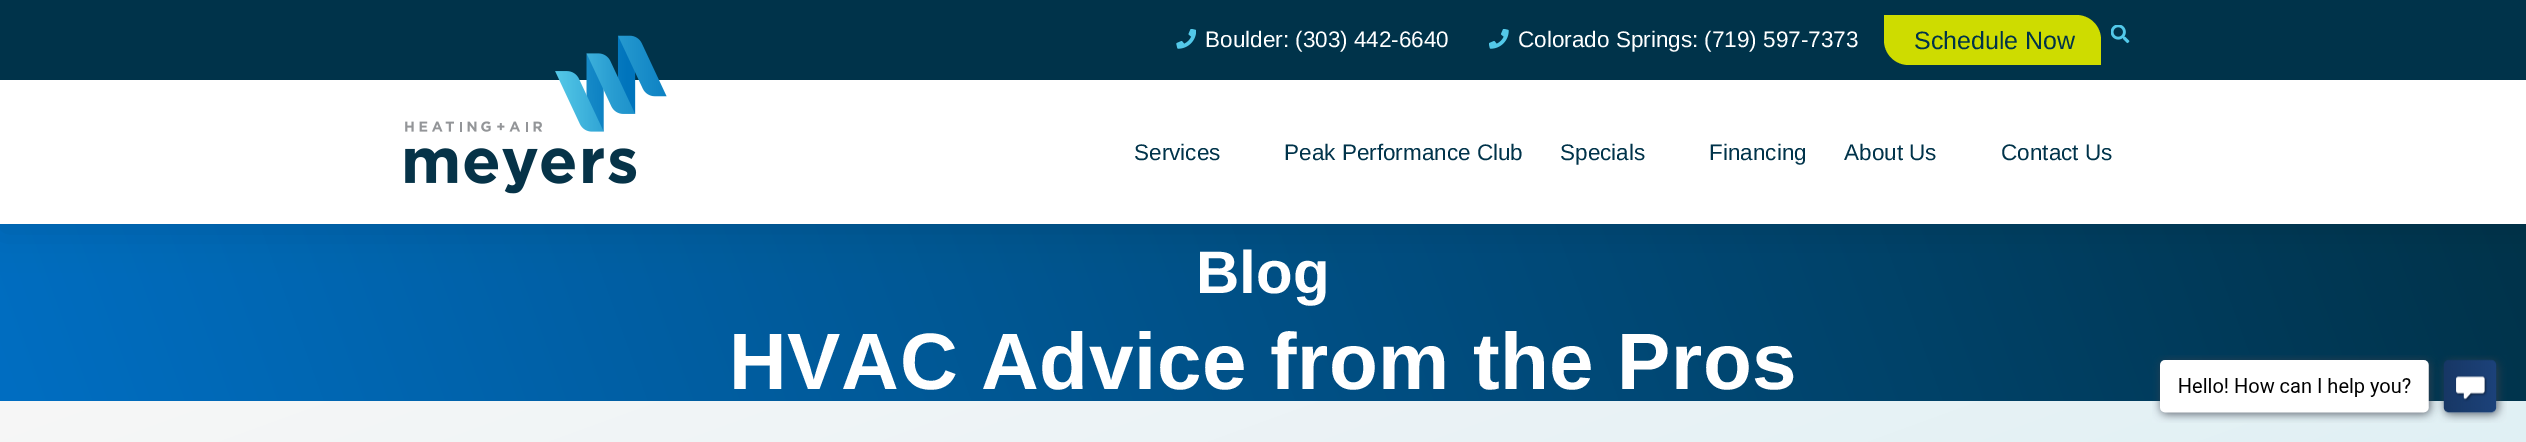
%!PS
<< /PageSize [2526 442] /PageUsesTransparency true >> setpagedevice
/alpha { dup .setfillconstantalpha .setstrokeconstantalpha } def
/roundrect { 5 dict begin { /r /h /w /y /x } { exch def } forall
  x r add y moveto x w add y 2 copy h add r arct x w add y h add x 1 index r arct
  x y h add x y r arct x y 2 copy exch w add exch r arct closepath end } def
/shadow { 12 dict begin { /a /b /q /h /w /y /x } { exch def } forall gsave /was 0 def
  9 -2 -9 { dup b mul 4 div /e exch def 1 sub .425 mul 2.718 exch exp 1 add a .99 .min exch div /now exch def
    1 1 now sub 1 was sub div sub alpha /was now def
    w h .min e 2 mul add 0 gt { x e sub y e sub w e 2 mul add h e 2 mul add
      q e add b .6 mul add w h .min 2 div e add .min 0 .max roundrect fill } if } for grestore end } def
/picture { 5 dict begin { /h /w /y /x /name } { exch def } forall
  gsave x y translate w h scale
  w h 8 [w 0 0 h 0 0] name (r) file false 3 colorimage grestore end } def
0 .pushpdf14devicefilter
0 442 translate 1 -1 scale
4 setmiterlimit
1 setgray
0 0 2526 442 rectfill
gsave newpath 0 224 moveto 2526 224 lineto 2526 401 lineto 0 401 lineto closepath clip newpath
<< /ShadingType 2 /ColorSpace /DeviceRGB /Coords [2407 -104 119 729] /Extend [true true] /Function << /FunctionType 2 /Domain [0 1] /C0 [0 0.2 0.29] /C1 [0 0.431 0.761] /N 1 >> >> shfill grestore
0 setgray
0 6 2526 224 0 19 0.1 shadow
0 0.2 0.29 setrgbcolor
0 0 2526 80 rectfill
(img1.rgb) 1176 29 20 20 picture
/LiberationSans-Regular [22.5 0 0 -22.5 0 0] selectfont
1 setgray
1205 47 moveto (Boulder: \(303\) 442-6640) show
(img2.rgb) 1489 29 20 20 picture
1518 47 moveto (Colorado Springs: \(719\) 597-7373) show
0.808 0.863 0 setrgbcolor
newpath 1884 15 moveto 2076 15 lineto 2090 15 2101 26 2101 40 curveto 2101 65 lineto 1909 65 lineto 1895 65 1884 54 1884 40 curveto closepath fill
/LiberationSans-Regular [25 0 0 -25 0 0] selectfont
0 0.2 0.29 setrgbcolor
1914 49 moveto (Schedule Now) show
(img3.rgb) 2111 25 19 19 picture
1 setgray
0 80 2526 144 rectfill
(img4.rgb) 405 35 262 159 picture
/LiberationSans-Regular [22.5 0 0 -22.5 0 0] selectfont
0 0.2 0.29 setrgbcolor
1134 160 moveto (Services) show
1284 160 moveto (Peak Performance Club) show
1560 160 moveto (Specials) show
1709 160 moveto (Financing) show
1844 160 moveto (About Us) show
2001 160 moveto (Contact Us) show
/LiberationSans-Bold [60 0 0 -60 0 0] selectfont
1 setgray
1196 293 moveto (Blog) show
/LiberationSans-Bold [80 0 0 -80 0 0] selectfont
729 389 moveto 0.6 0 (HVAC Advice from the Pros) ashow
gsave newpath 0 401 moveto 2526 401 lineto 2526 442 lineto 0 442 lineto closepath clip newpath
<< /ShadingType 2 /ColorSpace /DeviceRGB /Coords [517 213 2010 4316] /Extend [true true] /Function << /FunctionType 2 /Domain [0 1] /C0 [0.969 0.969 0.969] /C1 [0.529 0.831 0.914] /N 1 >> >> shfill grestore
(img5.rgb) 2152 355 355 68 picture
.poppdf14devicefilter showpage
